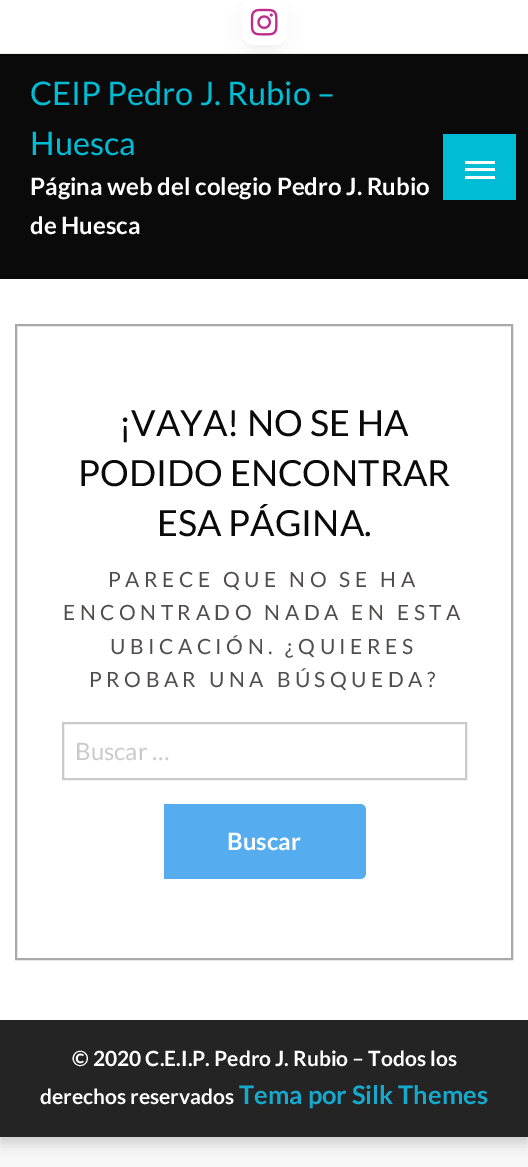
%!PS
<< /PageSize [528 1167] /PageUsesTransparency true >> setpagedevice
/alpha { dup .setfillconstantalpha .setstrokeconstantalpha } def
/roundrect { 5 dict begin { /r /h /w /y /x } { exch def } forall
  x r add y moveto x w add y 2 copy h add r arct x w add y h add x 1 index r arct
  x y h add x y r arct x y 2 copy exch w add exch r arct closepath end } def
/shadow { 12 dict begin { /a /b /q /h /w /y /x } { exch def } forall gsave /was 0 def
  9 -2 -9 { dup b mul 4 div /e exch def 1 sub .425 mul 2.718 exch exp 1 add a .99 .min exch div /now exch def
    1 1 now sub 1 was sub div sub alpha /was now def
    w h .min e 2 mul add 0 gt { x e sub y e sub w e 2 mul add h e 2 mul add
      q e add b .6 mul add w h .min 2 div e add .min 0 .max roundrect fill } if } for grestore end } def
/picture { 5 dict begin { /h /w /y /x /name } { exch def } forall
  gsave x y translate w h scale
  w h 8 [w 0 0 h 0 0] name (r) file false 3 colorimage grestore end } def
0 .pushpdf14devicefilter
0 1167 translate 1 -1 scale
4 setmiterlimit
0.969 setgray
0 0 528 1167 rectfill
0 setgray
0 5 528 1137 0 7.5 0.09 shadow
0 6 528 1137 0 6 0.1 shadow
1 setgray
0 0 528 53 rectfill
0.925 0.929 0.906 setrgbcolor
0 53 528 1 rectfill
0 setgray
249 15 30 30 5 11 0.1 shadow
1 setgray
242 0 45 45 12 roundrect fill
(img1.rgb) 250 8 28 28 picture
0.039 setgray
0 54 528 225 rectfill
/Lato-Regular [32.5 0 0 -32.5 0 0] selectfont
0 0.737 0.831 setrgbcolor
30 105 moveto (CEIP Pedro J. Rubio –) show
30 155 moveto (Huesca) show
/Lato-Bold [24 0 0 -24 0 0] selectfont
0.996 setgray
30 195 moveto (Página web del colegio Pedro J. Rubio) show
30 234 moveto (de Huesca) show
0 0.737 0.831 setrgbcolor
443 134 73 66 rectfill
1 setgray
465 161 30 3 rectfill
465 168 30 3 rectfill
465 176 30 3 rectfill
0 279 528 741 rectfill
0.663 setgray
2 setlinewidth
16 325 496 634 rectstroke
/Lato-Regular [36 0 0 -36 0 0] selectfont
0.039 setgray
119 436 moveto (¡VAYA! NO SE HA) show
78 486 moveto (PODIDO ENCONTRAR) show
157 536 moveto (ESA PÁGINA.) show
/Lato-Regular [21 0 0 -21 0 0] selectfont
0.314 0.302 0.302 setrgbcolor
108 587 moveto 4.5 0 (PARECE QUE NO SE HA) ashow
63 620 moveto 4.5 0 (ENCONTRADO NADA EN ESTA) ashow
110 654 moveto 4.5 0 (UBICACIÓN. ¿QUIERES) ashow
89 687 moveto 4.5 0 (PROBAR UNA BÚSQUEDA?) ashow
0.792 setgray
63 723 403 56 rectstroke
/Lato-Regular [24 0 0 -24 0 0] selectfont
75 760 moveto (Buscar …) show
0.333 0.675 0.933 setrgbcolor
newpath 164 804 moveto 360 804 lineto 363.5 804 366 806.5 366 810 curveto 366 873 lineto 366 876.5 363.5 879 360 879 curveto 164 879 lineto closepath fill
/Lato-Bold [24 0 0 -24 0 0] selectfont
0.996 setgray
227 850 moveto (Buscar) show
0.141 setgray
0 1020 528 117 rectfill
/Lato-Bold [21 0 0 -21 0 0] selectfont
0.996 setgray
72 1066 moveto (© 2020 C.E.I.P. Pedro J. Rubio – Todos los) show
40 1104 moveto (derechos reservados) show
/Lato-Bold [25.5 0 0 -25.5 0 0] selectfont
0.09 0.663 0.804 setrgbcolor
239 1104 moveto (Tema por Silk Themes) show
.poppdf14devicefilter showpage
